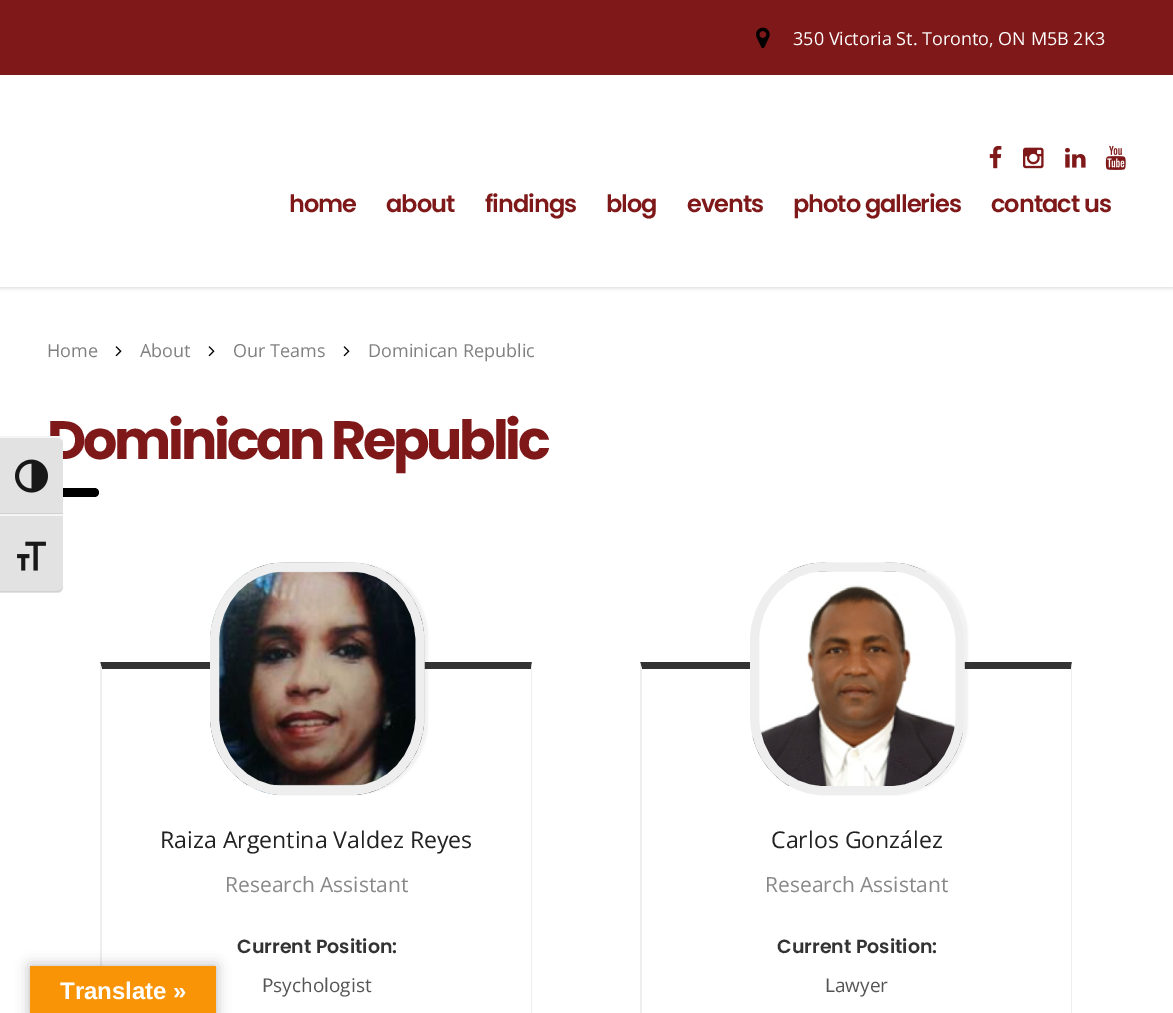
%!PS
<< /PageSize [1173 1013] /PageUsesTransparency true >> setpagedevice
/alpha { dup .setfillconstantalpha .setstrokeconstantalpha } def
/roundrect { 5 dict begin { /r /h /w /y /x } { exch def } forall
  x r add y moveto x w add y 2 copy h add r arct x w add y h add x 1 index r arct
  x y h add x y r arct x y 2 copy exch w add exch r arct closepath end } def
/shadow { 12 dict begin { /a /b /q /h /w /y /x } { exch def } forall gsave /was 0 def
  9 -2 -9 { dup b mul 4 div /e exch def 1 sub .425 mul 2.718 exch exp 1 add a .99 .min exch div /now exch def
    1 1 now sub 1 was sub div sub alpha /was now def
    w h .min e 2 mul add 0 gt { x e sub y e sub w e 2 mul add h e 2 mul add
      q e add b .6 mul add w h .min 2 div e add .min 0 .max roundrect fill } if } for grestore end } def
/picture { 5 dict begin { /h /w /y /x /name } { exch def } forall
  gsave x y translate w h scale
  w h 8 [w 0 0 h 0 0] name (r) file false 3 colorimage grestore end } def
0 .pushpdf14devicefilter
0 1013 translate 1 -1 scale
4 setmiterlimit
1 setgray
0 0 1173 1013 rectfill
/Poppins-Bold [54 0 0 -54 0 0] selectfont
0.498 0.094 0.098 setrgbcolor
47 459 moveto -3.25 0 (Dominican Republic) ashow
0 setgray
47 488 52 9 4.5 roundrect fill
0.886 setgray
newpath 0 437 moveto 57 437 lineto 60.5 437 63 439.5 63 443 curveto 63 515 lineto 0 515 lineto closepath fill
0.961 setgray
newpath 0 438 moveto 57 438 lineto 60 438 63 440 63 442 curveto 63 440 61 437 59 436 curveto 0 436 lineto closepath fill
0.824 setgray
0 513 63 1 rectfill
(img1.rgb) 15 459 33 34 picture
0.886 setgray
newpath 0 515 moveto 63 515 lineto 63 587 lineto 63 590.5 60.5 593 57 593 curveto 0 593 lineto closepath fill
0.961 setgray
0 514 63 2 rectfill
0.824 setgray
newpath 0 591 moveto 0 592 lineto 57 592 lineto 60 592 63 590 63 586 curveto 63 589 60 591 57 591 curveto closepath fill
(img2.rgb) 17 541 29 30 picture
gsave
newpath 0 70 moveto 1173 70 lineto 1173 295 lineto 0 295 lineto closepath 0 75 moveto 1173 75 lineto 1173 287 lineto 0 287 lineto closepath eoclip newpath
0 setgray
0 77 1173 211 0 2 0.15 shadow
grestore
0.498 0.094 0.094 setrgbcolor
0 0 1173 75 rectfill
(img3.rgb) 756 27 14 22 picture
/OpenSans-Regular [18 0 0 -18 0 0] selectfont
1 setgray
793 45 moveto (350 Victoria St. Toronto, ON M5B 2K3) show
0.3 alpha
0 286 1173 1 rectfill
1 alpha
(img4.rgb) 989 145 13 24 picture
(img5.rgb) 1023 147 21 22 picture
(img6.rgb) 1065 147 21 21 picture
(img7.rgb) 1105 145 21 25 picture
/Poppins-SemiBold [24 0 0 -24 0 0] selectfont
0.498 0.094 0.098 setrgbcolor
289 212 moveto -1 0 (home) ashow
386 212 moveto -1 0 (about) ashow
485 212 moveto -1 0 (findings) ashow
606 212 moveto -1 0 (blog) ashow
687 212 moveto -1 0 (events) ashow
793 212 moveto -1 0 (photo galleries) ashow
991 212 moveto -1 0 (contact us) ashow
/OpenSans-Regular [18 0 0 -18 0 0] selectfont
0.502 setgray
47 357 moveto (Home) show
(img8.rgb) 115 346 7 11 picture
140 357 moveto (About) show
(img8.rgb) 208 346 7 11 picture
233 357 moveto (Our Teams) show
(img8.rgb) 343 346 7 11 picture
368 357 moveto (Dominican Republic) show
0.2 setgray
newpath 100 662 moveto 532 662 lineto 531 669 lineto 102 669 lineto closepath fill
0.933 setgray
newpath 532 662 moveto 532 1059 lineto 531 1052 lineto 531 669 lineto closepath fill
newpath 100 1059 moveto 100 662 lineto 102 669 lineto 102 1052 lineto closepath fill
0 setgray
213 563 215 232 74 1 0.05 shadow
(img9.rgb) 210 562 215 233 picture
0.933 setgray
9 setlinewidth
newpath 283 567 moveto 351.5 567 lineto 389.5 567 420 600.5 420 641.5 curveto 420 716 lineto 420 757 389.5 790.5 351.5 790.5 curveto 283 790.5 lineto 245 790.5 214.5 757 214.5 716 curveto 214.5 641.5 lineto 214.5 600.5 245 567 283 567 curveto closepath stroke
/OpenSans-Regular [23.1 0 0 -23.1 0 0] selectfont
0.133 setgray
160 848 moveto (Raiza Argentina Valdez Reyes) show
/OpenSans-Regular [21 0 0 -21 0 0] selectfont
0.533 setgray
225 892 moveto (Research Assistant) show
/Poppins-SemiBold [19 0 0 -19 0 0] selectfont
0.2 setgray
237 953 moveto (Current Position:) show
/OpenSans-Regular [19 0 0 -19 0 0] selectfont
0.333 setgray
262 992 moveto (Psychologist) show
0.2 setgray
newpath 640 662 moveto 1072 662 lineto 1071 669 lineto 642 669 lineto closepath fill
0.933 setgray
newpath 1072 662 moveto 1072 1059 lineto 1071 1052 lineto 1071 669 lineto closepath fill
newpath 640 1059 moveto 640 662 lineto 642 669 lineto 642 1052 lineto closepath fill
0 setgray
753 563 215 232 74 1 0.05 shadow
(img10.rgb) 750 562 215 224 picture
0.933 setgray
newpath 823 567 moveto 891.5 567 lineto 929.5 567 960 600.5 960 641.5 curveto 960 716 lineto 960 757 929.5 790.5 891.5 790.5 curveto 823 790.5 lineto 785 790.5 754.5 757 754.5 716 curveto 754.5 641.5 lineto 754.5 600.5 785 567 823 567 curveto closepath stroke
/OpenSans-Regular [23.1 0 0 -23.1 0 0] selectfont
0.133 setgray
771 848 moveto (Carlos González) show
/OpenSans-Regular [21 0 0 -21 0 0] selectfont
0.533 setgray
765 892 moveto (Research Assistant) show
/Poppins-SemiBold [19 0 0 -19 0 0] selectfont
0.2 setgray
777 953 moveto (Current Position:) show
/OpenSans-Regular [19 0 0 -19 0 0] selectfont
0.333 setgray
825 992 moveto (Lawyer) show
0 setgray
30 966 186 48 0 7 0.3 shadow
0.973 0.58 0.024 setrgbcolor
30 966 186 47 rectfill
/LiberationSans-Bold [24 0 0 -24 0 0] selectfont
1 setgray
60 999 moveto (Translate ») show
.poppdf14devicefilter showpage
